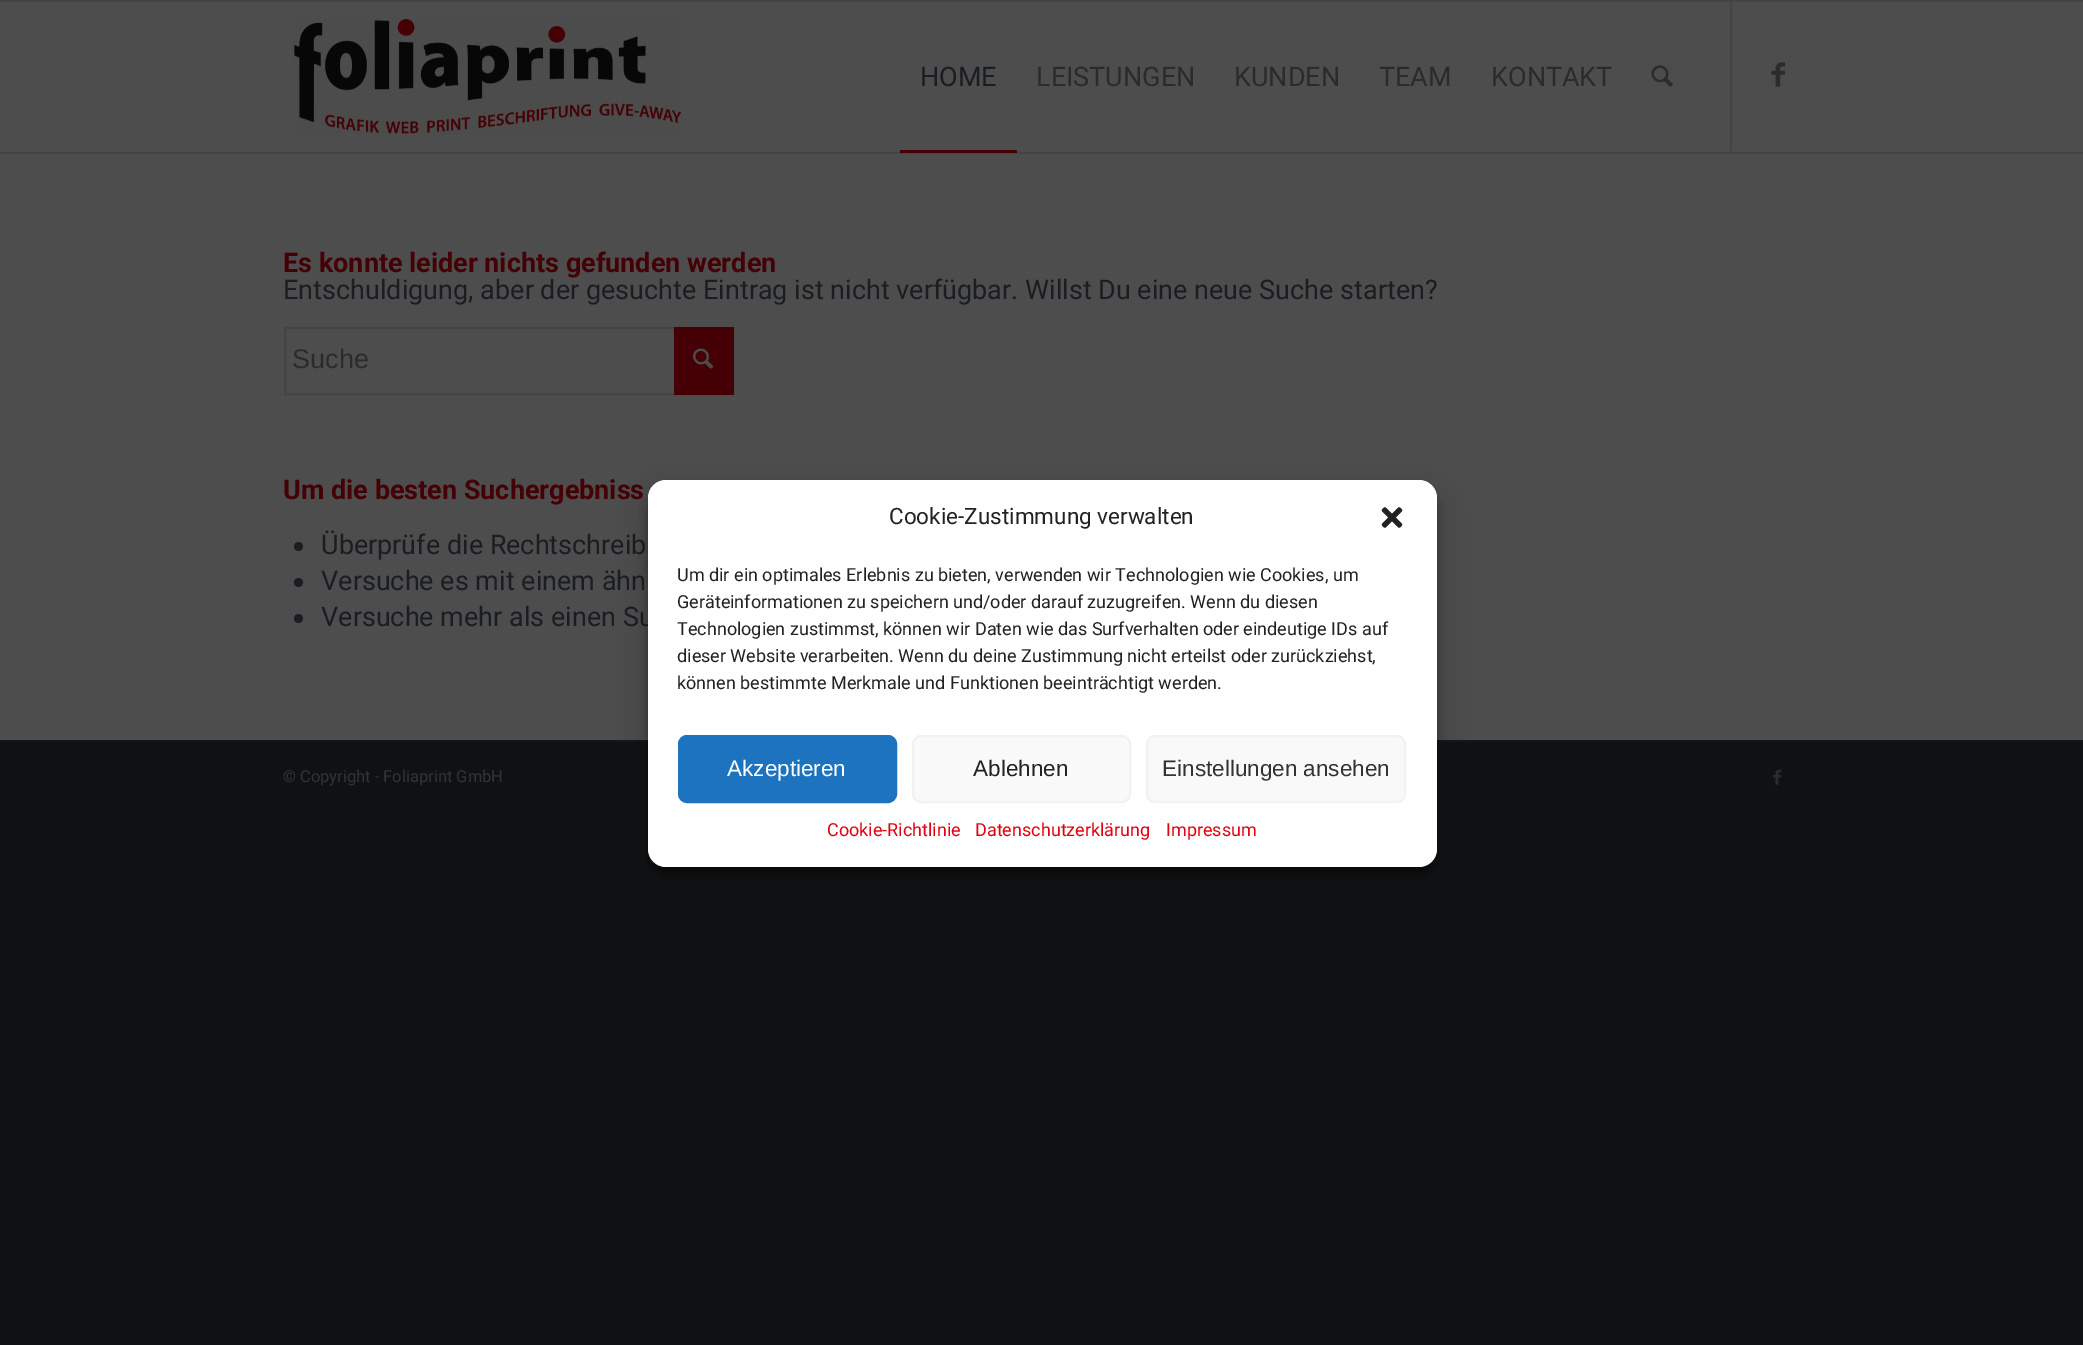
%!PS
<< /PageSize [2083 1345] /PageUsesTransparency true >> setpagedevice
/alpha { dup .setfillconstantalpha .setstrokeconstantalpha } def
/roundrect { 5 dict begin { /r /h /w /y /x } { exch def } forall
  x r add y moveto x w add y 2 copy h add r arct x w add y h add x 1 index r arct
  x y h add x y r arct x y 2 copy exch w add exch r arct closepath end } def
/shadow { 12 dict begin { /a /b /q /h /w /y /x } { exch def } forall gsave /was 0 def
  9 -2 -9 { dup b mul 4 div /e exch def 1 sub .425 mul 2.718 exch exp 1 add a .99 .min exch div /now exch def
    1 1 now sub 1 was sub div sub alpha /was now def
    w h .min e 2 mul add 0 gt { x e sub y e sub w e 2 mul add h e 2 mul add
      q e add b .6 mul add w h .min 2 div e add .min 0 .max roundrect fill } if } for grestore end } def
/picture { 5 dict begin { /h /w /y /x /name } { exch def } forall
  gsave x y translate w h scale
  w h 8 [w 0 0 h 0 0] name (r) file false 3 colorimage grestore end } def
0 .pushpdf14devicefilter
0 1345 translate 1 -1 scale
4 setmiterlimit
0.063 0.067 0.071 setrgbcolor
0 0 2083 1345 rectfill
0.302 setgray
0 154 2083 586 rectfill
0 2 2083 148 rectfill
0.267 setgray
0 0 2083 2 rectfill
0 152 2083 2 rectfill
(img1.rgb) 294 19 388 115 picture
0.298 setgray
0 150 2083 2 rectfill
0.267 setgray
1730 2 2 150 rectfill
/Roboto-Regular [27 0 0 -27 0 0] selectfont
0.102 0.114 0.129 setrgbcolor
920 86 moveto (HOME) show
0.267 0 0.02 setrgbcolor
900 150 117 3 rectfill
0.161 0.169 0.176 setrgbcolor
1036 86 moveto (LEISTUNGEN) show
1234 86 moveto (KUNDEN) show
1379 86 moveto (TEAM) show
1491 86 moveto (KONTAKT) show
(img2.rgb) 1651 65 22 22 picture
(img3.rgb) 1771 62 14 25 picture
/Roboto-Bold [27 0 0 -27 0 0] selectfont
0.267 0 0.02 setrgbcolor
283 272 moveto (Es konnte leider nichts gefunden werden) show
/Roboto-Regular [27 0 0 -27 0 0] selectfont
0.102 0.114 0.129 setrgbcolor
283 299 moveto (Entschuldigung, aber der gesuchte Eintrag ist nicht verfügbar. Willst Du eine neue Suche starten?) show
0.267 setgray
2 setlinewidth
285 328 448 66 rectstroke
/LiberationSans-Regular [27 0 0 -27 0 0] selectfont
0.161 0.169 0.176 setrgbcolor
292 368 moveto (Suche) show
0.267 0 0.02 setrgbcolor
674 327 60 68 rectfill
(img4.rgb) 693 348 21 21 picture
/Roboto-Bold [27 0 0 -27 0 0] selectfont
283 499 moveto (Um die besten Suchergebniss) show
0.102 0.114 0.129 setrgbcolor
newpath 298.5 546.5 4.5 0 360 arc closepath fill
/Roboto-Regular [27 0 0 -27 0 0] selectfont
321 554 moveto (Überprüfe die Rechtschreib) show
newpath 298.5 582.5 4.5 0 360 arc closepath fill
321 590 moveto (Versuche es mit einem ähn) show
newpath 298.5 618.5 4.5 0 360 arc closepath fill
321 626 moveto (Versuche mehr als einen Su) show
0.082 0.086 0.09 setrgbcolor
0 740 2083 2 rectfill
/Roboto-Regular [16.5 0 0 -16.5 0 0] selectfont
0.196 0.2 0.208 setrgbcolor
283 782 moveto (© Copyright - Foliaprint GmbH) show
(img5.rgb) 1773 769 9 16 picture
0 setgray
648 489 789 387 18 4.5 0.23 shadow
648 495 789 387 18 15 0.19 shadow
1 setgray
648 480 789 387 18 roundrect fill
/Roboto-Regular [22.5 0 0 -22.5 0 0] selectfont
0.133 setgray
889 524 moveto (Cookie-Zustimmung verwalten) show
(img6.rgb) 1381 507 22 21 picture
/Roboto-Regular [18 0 0 -18 0 0] selectfont
677 581 moveto (Um dir ein optimales Erlebnis zu bieten, verwenden wir Technologien wie Cookies, um) show
677 608 moveto (Geräteinformationen zu speichern und/oder darauf zuzugreifen. Wenn du diesen) show
677 635 moveto (Technologien zustimmst, können wir Daten wie das Surfverhalten oder eindeutige IDs auf) show
677 662 moveto (dieser Website verarbeiten. Wenn du deine Zustimmung nicht erteilst oder zurückziehst,) show
677 689 moveto (können bestimmte Merkmale und Funktionen beeinträchtigt werden.) show
0.118 0.451 0.745 setrgbcolor
679 736 217 66 8 roundrect gsave fill grestore
stroke
/LiberationSans-Regular [22.5 0 0 -22.5 0 0] selectfont
1 setgray
727 776 moveto (Akzeptieren) show
0.976 setgray
913 736 217 66 8 roundrect gsave fill grestore
0.949 setgray
stroke
0.133 setgray
973 776 moveto (Ablehnen) show
0.976 setgray
1147 736 258 66 8 roundrect gsave fill grestore
0.949 setgray
stroke
0.196 0.2 0.208 setrgbcolor
1162 776 moveto (Einstellungen ansehen) show
/Roboto-Regular [18 0 0 -18 0 0] selectfont
0.886 0.004 0.063 setrgbcolor
827 836 moveto (Cookie-Richtlinie) show
975 836 moveto (Datenschutzerklärung) show
1166 836 moveto (Impressum) show
.poppdf14devicefilter showpage
